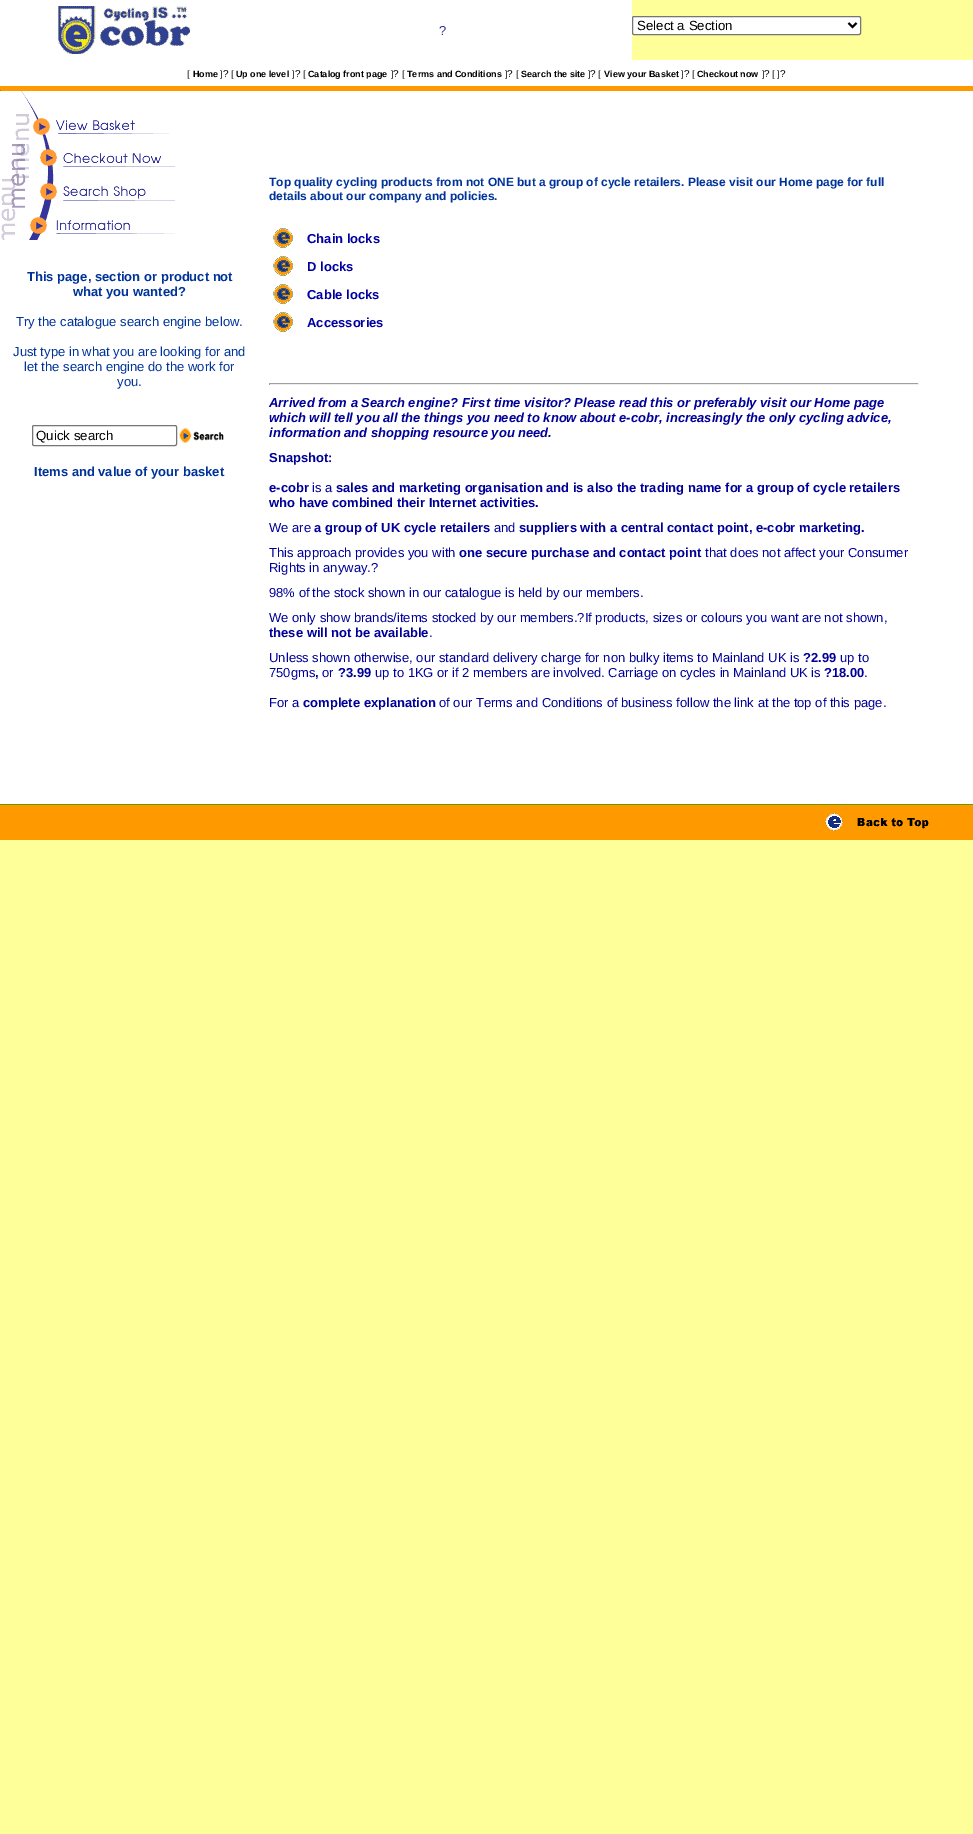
%!PS
<< /PageSize [973 1834] >> setpagedevice
/roundrect { 5 dict begin { /r /h /w /y /x } { exch def } forall
  x r add y moveto x w add y 2 copy h add r arct x w add y h add x 1 index r arct
  x y h add x y r arct x y 2 copy exch w add exch r arct closepath end } def
/picture { 5 dict begin { /h /w /y /x /name } { exch def } forall
  gsave x y translate w h scale
  w h 8 [w 0 0 h 0 0] name (r) file false 3 colorimage grestore end } def
0 1834 translate 1 -1 scale
4 setmiterlimit
1 1 0.6 setrgbcolor
0 0 973 1834 rectfill
1 setgray
0 0 632 60 rectfill
(img1.rgb) 58 6 132 48 picture
632.5 16.5 228 18 1.5 roundrect gsave fill grestore
0.463 setgray
stroke
0 setgray
2 setlinewidth
newpath 848.5 23 moveto 852.5 27 lineto 856.5 23 lineto stroke
/LiberationSans-Regular [13.25 0 0 -13.25 0 0] selectfont
637 30 moveto (Select a Section) show
/LiberationSans-Regular [13 0 0 -13 0 0] selectfont
0.2 0.2 0.6 setrgbcolor
439 35 moveto (?) show
1 setgray
0 60 973 26 rectfill
/LiberationSans-Regular [9 0 0 -9 0 0] selectfont
0 setgray
187 77 moveto ([) show
/LiberationSans-Bold [9 0 0 -9 0 0] selectfont
193 77 moveto (Home) show
/LiberationSans-Regular [9 0 0 -9 0 0] selectfont
220 77 moveto (]) show
/LiberationSans-Regular [10 0 0 -10 0 0] selectfont
223 77 moveto (?) show
/LiberationSans-Regular [9 0 0 -9 0 0] selectfont
231 77 moveto ([) show
/LiberationSans-Bold [9 0 0 -9 0 0] selectfont
236 77 moveto (Up one level) show
/LiberationSans-Regular [9 0 0 -9 0 0] selectfont
292 77 moveto (]) show
/LiberationSans-Regular [10 0 0 -10 0 0] selectfont
295 77 moveto (?) show
/LiberationSans-Regular [9 0 0 -9 0 0] selectfont
303 77 moveto ([) show
/LiberationSans-Bold [9 0 0 -9 0 0] selectfont
308 77 moveto (Catalog front page) show
/LiberationSans-Regular [9 0 0 -9 0 0] selectfont
391 77 moveto (]) show
/LiberationSans-Regular [10 0 0 -10 0 0] selectfont
393 77 moveto (?) show
/LiberationSans-Regular [9 0 0 -9 0 0] selectfont
402 77 moveto ([) show
/LiberationSans-Bold [9 0 0 -9 0 0] selectfont
407 77 moveto (Terms and Conditions) show
/LiberationSans-Regular [9 0 0 -9 0 0] selectfont
505 77 moveto (]) show
/LiberationSans-Regular [10 0 0 -10 0 0] selectfont
507 77 moveto (?) show
/LiberationSans-Regular [9 0 0 -9 0 0] selectfont
516 77 moveto ([) show
/LiberationSans-Bold [9 0 0 -9 0 0] selectfont
521 77 moveto (Search the site) show
/LiberationSans-Regular [9 0 0 -9 0 0] selectfont
588 77 moveto (]) show
/LiberationSans-Regular [10 0 0 -10 0 0] selectfont
590 77 moveto (?) show
/LiberationSans-Regular [9 0 0 -9 0 0] selectfont
598 77 moveto ([) show
/LiberationSans-Bold [9 0 0 -9 0 0] selectfont
604 77 moveto (View your Basket) show
/LiberationSans-Regular [9 0 0 -9 0 0] selectfont
681 77 moveto (]) show
/LiberationSans-Regular [10 0 0 -10 0 0] selectfont
684 77 moveto (?) show
/LiberationSans-Regular [9 0 0 -9 0 0] selectfont
692 77 moveto ([) show
/LiberationSans-Bold [9 0 0 -9 0 0] selectfont
697 77 moveto (Checkout now) show
/LiberationSans-Regular [9 0 0 -9 0 0] selectfont
762 77 moveto (]) show
/LiberationSans-Regular [10 0 0 -10 0 0] selectfont
764 77 moveto (?) show
/LiberationSans-Regular [9 0 0 -9 0 0] selectfont
772 77 moveto ([ ]) show
/LiberationSans-Regular [10 0 0 -10 0 0] selectfont
780 77 moveto (?) show
1 0.6 0 setrgbcolor
0 86 973 5 rectfill
0.404 0.604 0.004 setrgbcolor
0 90 1 1 rectfill
1 setgray
0 91 973 713 rectfill
(img2.rgb) 15 91 154 48 picture
(img3.rgb) 11 139 164 32 picture
(img4.rgb) 1 171 174 36 picture
(img5.rgb) 1 207 174 33 picture
/LiberationSans-Bold [13 0 0 -13 0 0] selectfont
0 0.2 0.6 setrgbcolor
27 281 moveto (This page, section or product not) show
73 296 moveto (what you wanted?) show
/LiberationSans-Regular [13 0 0 -13 0 0] selectfont
16 326 moveto (Try the catalogue search engine below.) show
13 356 moveto (Just type in what you are looking for and) show
24 371 moveto (let the search engine do the work for) show
117 386 moveto (you.) show
0.463 setgray
1 setlinewidth
32.5 425.5 144 20 1.5 roundrect stroke
/LiberationSans-Regular [13.25 0 0 -13.25 0 0] selectfont
0 setgray
36 440 moveto (Quick search) show
(img6.rgb) 179 427 45 17 picture
/LiberationSans-Bold [13 0 0 -13 0 0] selectfont
0 0.2 0.6 setrgbcolor
34 476 moveto (Items and value of your basket) show
/LiberationSans-Bold [12 0 0 -12 0 0] selectfont
269 186 moveto (Top quality cycling products from not ONE but a group of cycle retailers. Please visit our Home page for full) show
269 200 moveto (details about our company and policies.) show
(img7.rgb) 273 228 20 20 picture
/LiberationSans-Bold [13 0 0 -13 0 0] selectfont
0 0 0.627 setrgbcolor
307 243 moveto (Chain locks) show
(img7.rgb) 273 256 20 20 picture
307 271 moveto (D locks) show
(img7.rgb) 273 284 20 20 picture
307 299 moveto (Cable locks) show
(img7.rgb) 273 312 20 20 picture
307 327 moveto (Accessories) show
0.624 setgray
269 383 650 1 rectfill
0.933 setgray
918 383 1 2 rectfill
269 384 650 1 rectfill
0.624 setgray
269 383 1 2 rectfill
/LiberationSans-BoldItalic [13 0 0 -13 0 0] selectfont
0 0 0.6 setrgbcolor
269 407 moveto (Arrived from a Search engine? First time visitor? Please read this or preferably visit our Home page) show
269 422 moveto (which will tell you all the things you need to know about e-cobr, increasingly the only cycling advice,) show
269 437 moveto (information and shopping resource you need.) show
/LiberationSans-Bold [13 0 0 -13 0 0] selectfont
269 462 moveto (Snapshot:) show
269 492 moveto (e-cobr) show
/LiberationSans-Regular [13 0 0 -13 0 0] selectfont
312 492 moveto (is a) show
/LiberationSans-Bold [13 0 0 -13 0 0] selectfont
336 492 moveto (sales and marketing organisation and is also the trading name for a group of cycle retailers) show
269 507 moveto (who have combined their Internet activities.) show
/LiberationSans-Regular [13 0 0 -13 0 0] selectfont
269 532 moveto (We are) show
/LiberationSans-Bold [13 0 0 -13 0 0] selectfont
314 532 moveto (a group of UK cycle retailers) show
/LiberationSans-Regular [13 0 0 -13 0 0] selectfont
494 532 moveto (and) show
/LiberationSans-Bold [13 0 0 -13 0 0] selectfont
519 532 moveto (suppliers with a central contact point, e-cobr marketing.) show
/LiberationSans-Regular [13 0 0 -13 0 0] selectfont
269 557 moveto (This approach provides you with) show
/LiberationSans-Bold [13 0 0 -13 0 0] selectfont
459 557 moveto (one secure purchase and contact point) show
/LiberationSans-Regular [13 0 0 -13 0 0] selectfont
705 557 moveto (that does not affect your Consumer) show
269 572 moveto (Rights in anyway.?) show
269 597 moveto (98% of) show
312 597 moveto (the stock shown in our catalogue is held by our members.) show
269 622 moveto (We only show brands/items stocked by our members.?If products, sizes or colours you want are not shown,) show
/LiberationSans-Bold [13 0 0 -13 0 0] selectfont
269 637 moveto (these will not be available) show
/LiberationSans-Regular [13 0 0 -13 0 0] selectfont
429 637 moveto (.) show
269 662 moveto (Unless shown otherwise, our standard delivery charge for non bulky items to Mainland UK is) show
/LiberationSans-Bold [13 0 0 -13 0 0] selectfont
803 662 moveto (?2.99) show
/LiberationSans-Regular [13 0 0 -13 0 0] selectfont
840 662 moveto (up to) show
269 677 moveto (750gms) show
/LiberationSans-Bold [13 0 0 -13 0 0] selectfont
315 677 moveto (,) show
/LiberationSans-Regular [13 0 0 -13 0 0] selectfont
322 677 moveto (or) show
/LiberationSans-Bold [13 0 0 -13 0 0] selectfont
338 677 moveto (?3.99) show
/LiberationSans-Regular [13 0 0 -13 0 0] selectfont
375 677 moveto (up to 1KG or if 2 members are involved. Carriage on cycles in Mainland UK is) show
/LiberationSans-Bold [13 0 0 -13 0 0] selectfont
824 677 moveto (?18.00) show
/LiberationSans-Regular [13 0 0 -13 0 0] selectfont
864 677 moveto (.) show
269 707 moveto (For a) show
/LiberationSans-Bold [13 0 0 -13 0 0] selectfont
303 707 moveto (complete explanation) show
/LiberationSans-Regular [13 0 0 -13 0 0] selectfont
439 707 moveto (of our Terms and Conditions of business follow the link at the top of this page.) show
0.404 0.604 0.004 setrgbcolor
0 804 973 1 rectfill
1 0.6 0 setrgbcolor
0 805 973 35 rectfill
(img8.rgb) 825 813 104 18 picture
showpage
